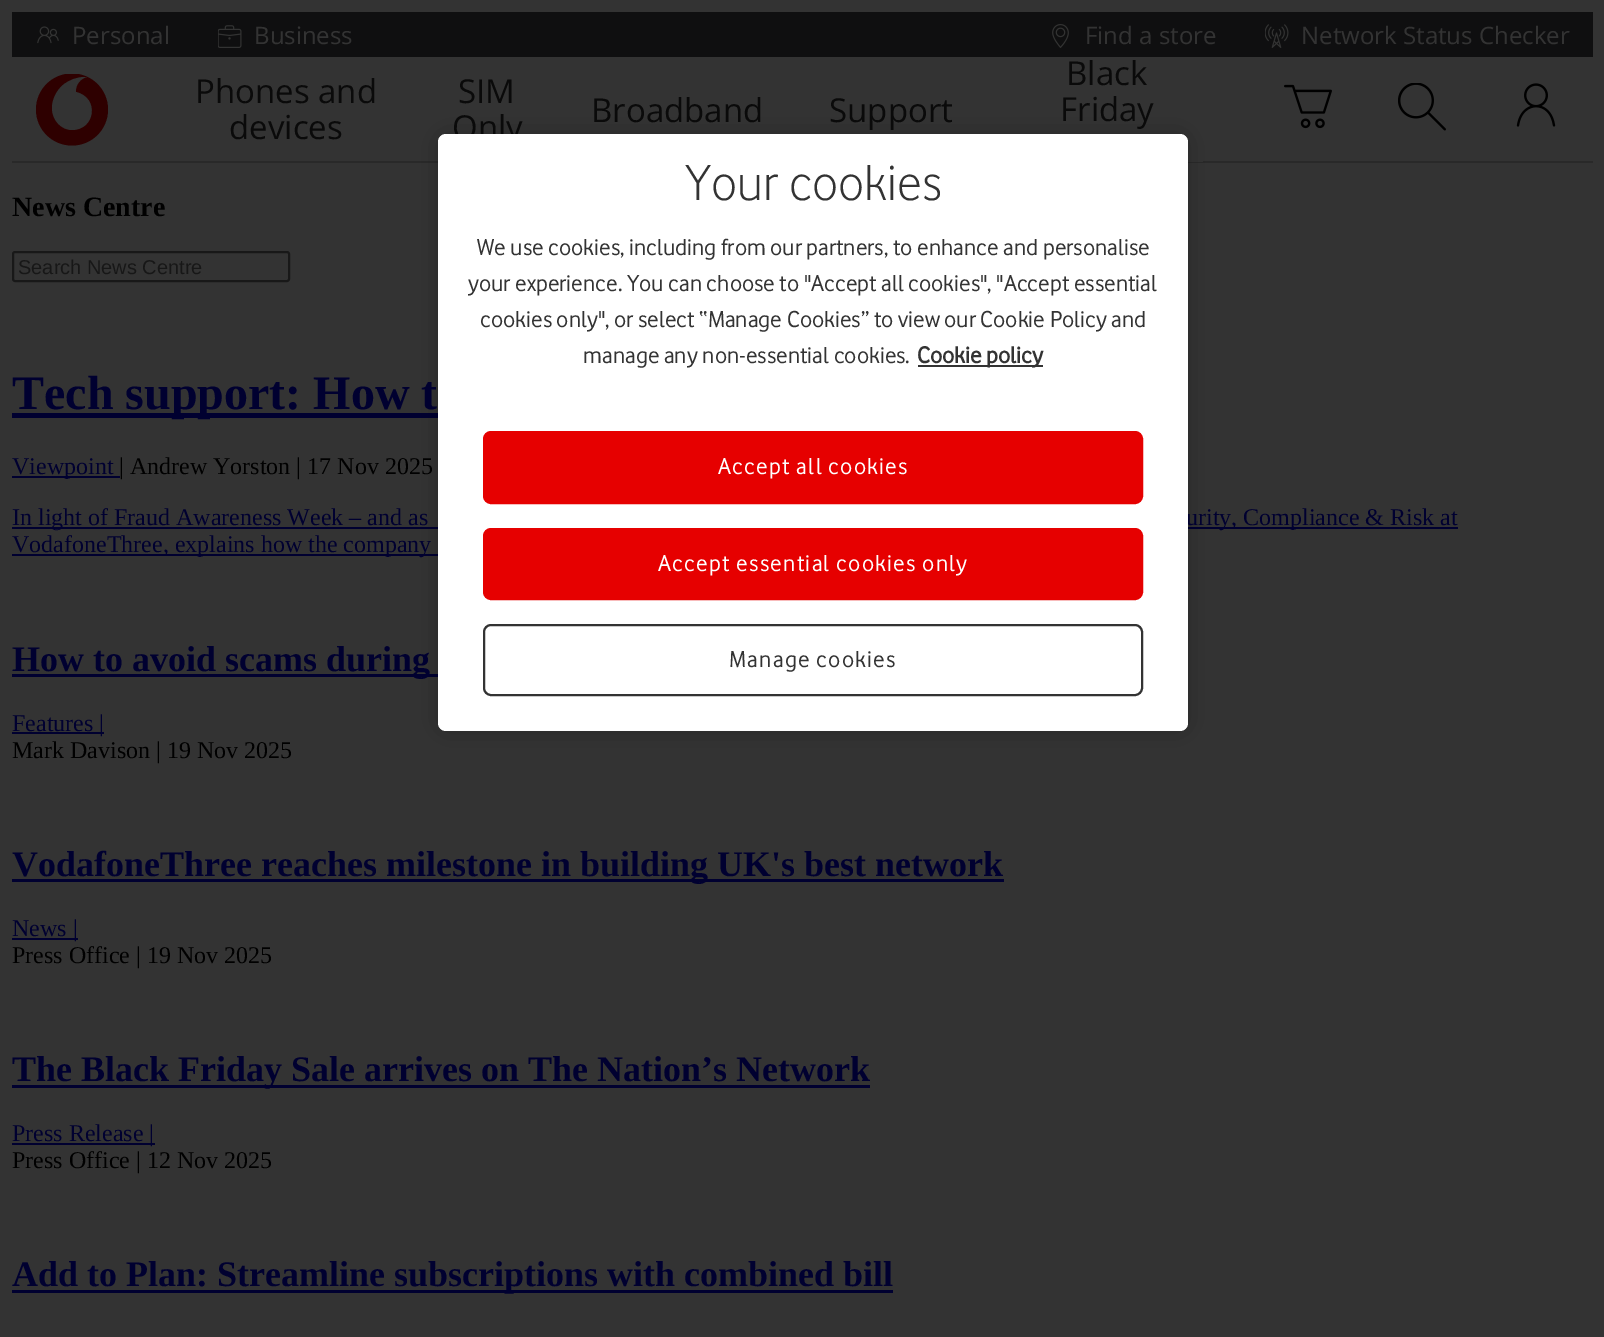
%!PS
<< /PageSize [1604 1337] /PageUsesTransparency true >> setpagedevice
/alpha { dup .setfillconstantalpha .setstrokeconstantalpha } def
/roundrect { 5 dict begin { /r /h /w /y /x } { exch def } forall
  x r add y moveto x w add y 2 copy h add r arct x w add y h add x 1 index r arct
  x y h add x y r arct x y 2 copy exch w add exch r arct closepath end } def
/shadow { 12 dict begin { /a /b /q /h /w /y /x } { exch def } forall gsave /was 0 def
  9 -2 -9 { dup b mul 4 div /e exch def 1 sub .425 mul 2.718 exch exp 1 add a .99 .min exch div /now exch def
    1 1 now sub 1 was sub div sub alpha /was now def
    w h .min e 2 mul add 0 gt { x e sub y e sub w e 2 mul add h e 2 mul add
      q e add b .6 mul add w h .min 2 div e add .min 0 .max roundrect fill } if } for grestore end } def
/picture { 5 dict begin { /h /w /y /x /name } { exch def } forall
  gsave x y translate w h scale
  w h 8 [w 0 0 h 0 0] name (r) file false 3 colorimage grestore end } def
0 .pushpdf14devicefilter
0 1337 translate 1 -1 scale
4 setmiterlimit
0.2 setgray
0 0 1604 1337 rectfill
0.059 0.059 0.063 setrgbcolor
12 12 1581 45 rectfill
(img1.rgb) 37 26 22 18 picture
/OpenSans-Regular [24 0 0 -24 0 0] selectfont
0.2 setgray
72 44 moveto (Personal) show
(img2.rgb) 218 25 24 23 picture
254 44 moveto (Business) show
(img3.rgb) 1052 24 17 24 picture
1085 44 moveto (Find a store) show
(img4.rgb) 1265 24 24 24 picture
1301 44 moveto (Network Status Checker) show
gsave
36 74 72 72 rectclip
0.18 0 0 setrgbcolor
newpath 72 109.5 36 0 360 arc closepath fill
grestore
newpath 72 130 moveto 62 130 52 121 52 108 curveto 52 99 57 90 63 85 curveto 69 80 77 77 85 77 curveto 87 77 lineto 81 78 75 85 76 92 curveto 100 98 95 130 72 130 curveto closepath fill
/OpenSans-Regular [33 0 0 -33 0 0] selectfont
0.039 setgray
195 103 moveto (Phones and) show
229 139 moveto (devices) show
458 103 moveto (SIM) show
452 139 moveto (Only) show
591 122 moveto (Broadband) show
829 122 moveto (Support) show
0.161 setgray
12 161 1581 2 rectfill
0.2 setgray
1010 161 193 1 rectfill
0.039 setgray
1066 85 moveto (Black) show
1060 121 moveto (Friday) show
(img5.rgb) 1284 84 48 45 picture
(img6.rgb) 1398 83 48 48 picture
(img7.rgb) 1516 83 40 44 picture
0 0 0.188 setrgbcolor
12 413 426 5 rectfill
12 527 1446 2 rectfill
12 554 426 2 rectfill
12 674 426 3 rectfill
0 setgray
438 134 750 597 8 13.5 0.2 shadow
/LiberationSerif-Regular [24 0 0 -24 0 0] selectfont
0 0 0.188 setrgbcolor
1186 525 moveto (urity, Compliance & Risk at) show
1 setgray
438 134 750 597 8 roundrect fill
/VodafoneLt-Regular [52.5 0 0 -52.5 0 0] selectfont
0.2 setgray
685 200 moveto (Your cookies) show
/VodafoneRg-Regular [24 0 0 -24 0 0] selectfont
477 255 moveto (We use cookies, including from our partners, to enhance and personalise) show
468 291 moveto (your experience. You can choose to "Accept all cookies", "Accept essential) show
480 327 moveto (cookies only", or select “Manage Cookies” to view our Cookie Policy and) show
583 363 moveto (manage any non-essential cookies.) show
918 365 125 2 rectfill
/VodafoneRg-Bold [24 0 0 -24 0 0] selectfont
917 363 moveto (Cookie policy) show
0.902 0 0 setrgbcolor
484 432 658 71 7 roundrect gsave fill grestore
2 setlinewidth
stroke
/VodafoneRg-Regular [24 0 0 -24 0 0] selectfont
1 setgray
718 474 moveto 1.2 0 (Accept all cookies) ashow
0.902 0 0 setrgbcolor
484 529 658 70 7 roundrect gsave fill grestore
stroke
1 setgray
658 571 moveto 1.2 0 (Accept essential cookies only) ashow
0.2 setgray
484 625 658 70 7 roundrect stroke
729 667 moveto 1.2 0 (Manage cookies) ashow
/LiberationSerif-Bold [28 0 0 -28 0 0] selectfont
0 setgray
12 216 moveto (News Centre) show
0.094 setgray
13 252 276 29 2 roundrect stroke
/LiberationSans-Regular [20 0 0 -20 0 0] selectfont
0.09 setgray
18 274 moveto (Search News Centre) show
/LiberationSerif-Bold [48 0 0 -48 0 0] selectfont
0 0 0.188 setrgbcolor
12 409 moveto (Tech support: How t) show
12 476 108 2 rectfill
/LiberationSerif-Regular [24 0 0 -24 0 0] selectfont
12 474 moveto (Viewpoint) show
0 setgray
119 474 moveto (| Andrew Yorston | 17 Nov 2025) show
0 0 0.188 setrgbcolor
12 525 moveto (In light of Fraud Awareness Week – and as) show
12 552 moveto (VodafoneThree, explains how the company) show
/LiberationSerif-Bold [36 0 0 -36 0 0] selectfont
12 671 moveto (How to avoid scams during) show
12 732 92 2 rectfill
/LiberationSerif-Regular [24 0 0 -24 0 0] selectfont
12 731 moveto (Features |) show
0 setgray
12 758 moveto (Mark Davison | 19 Nov 2025) show
0 0 0.188 setrgbcolor
12 879 992 3 rectfill
/LiberationSerif-Bold [36 0 0 -36 0 0] selectfont
12 876 moveto (VodafoneThree reaches milestone in building UK's best network) show
12 938 66 2 rectfill
/LiberationSerif-Regular [24 0 0 -24 0 0] selectfont
12 936 moveto (News |) show
0 setgray
12 963 moveto (Press Office | 19 Nov 2025) show
0 0 0.188 setrgbcolor
12 1085 858 3 rectfill
/LiberationSerif-Bold [36 0 0 -36 0 0] selectfont
12 1081 moveto (The Black Friday Sale arrives on The Nation’s Network) show
12 1143 143 2 rectfill
/LiberationSerif-Regular [24 0 0 -24 0 0] selectfont
12 1141 moveto (Press Release |) show
0 setgray
12 1168 moveto (Press Office | 12 Nov 2025) show
0 0 0.188 setrgbcolor
12 1290 881 3 rectfill
/LiberationSerif-Bold [36 0 0 -36 0 0] selectfont
12 1286 moveto (Add to Plan: Streamline subscriptions with combined bill) show
.poppdf14devicefilter showpage
